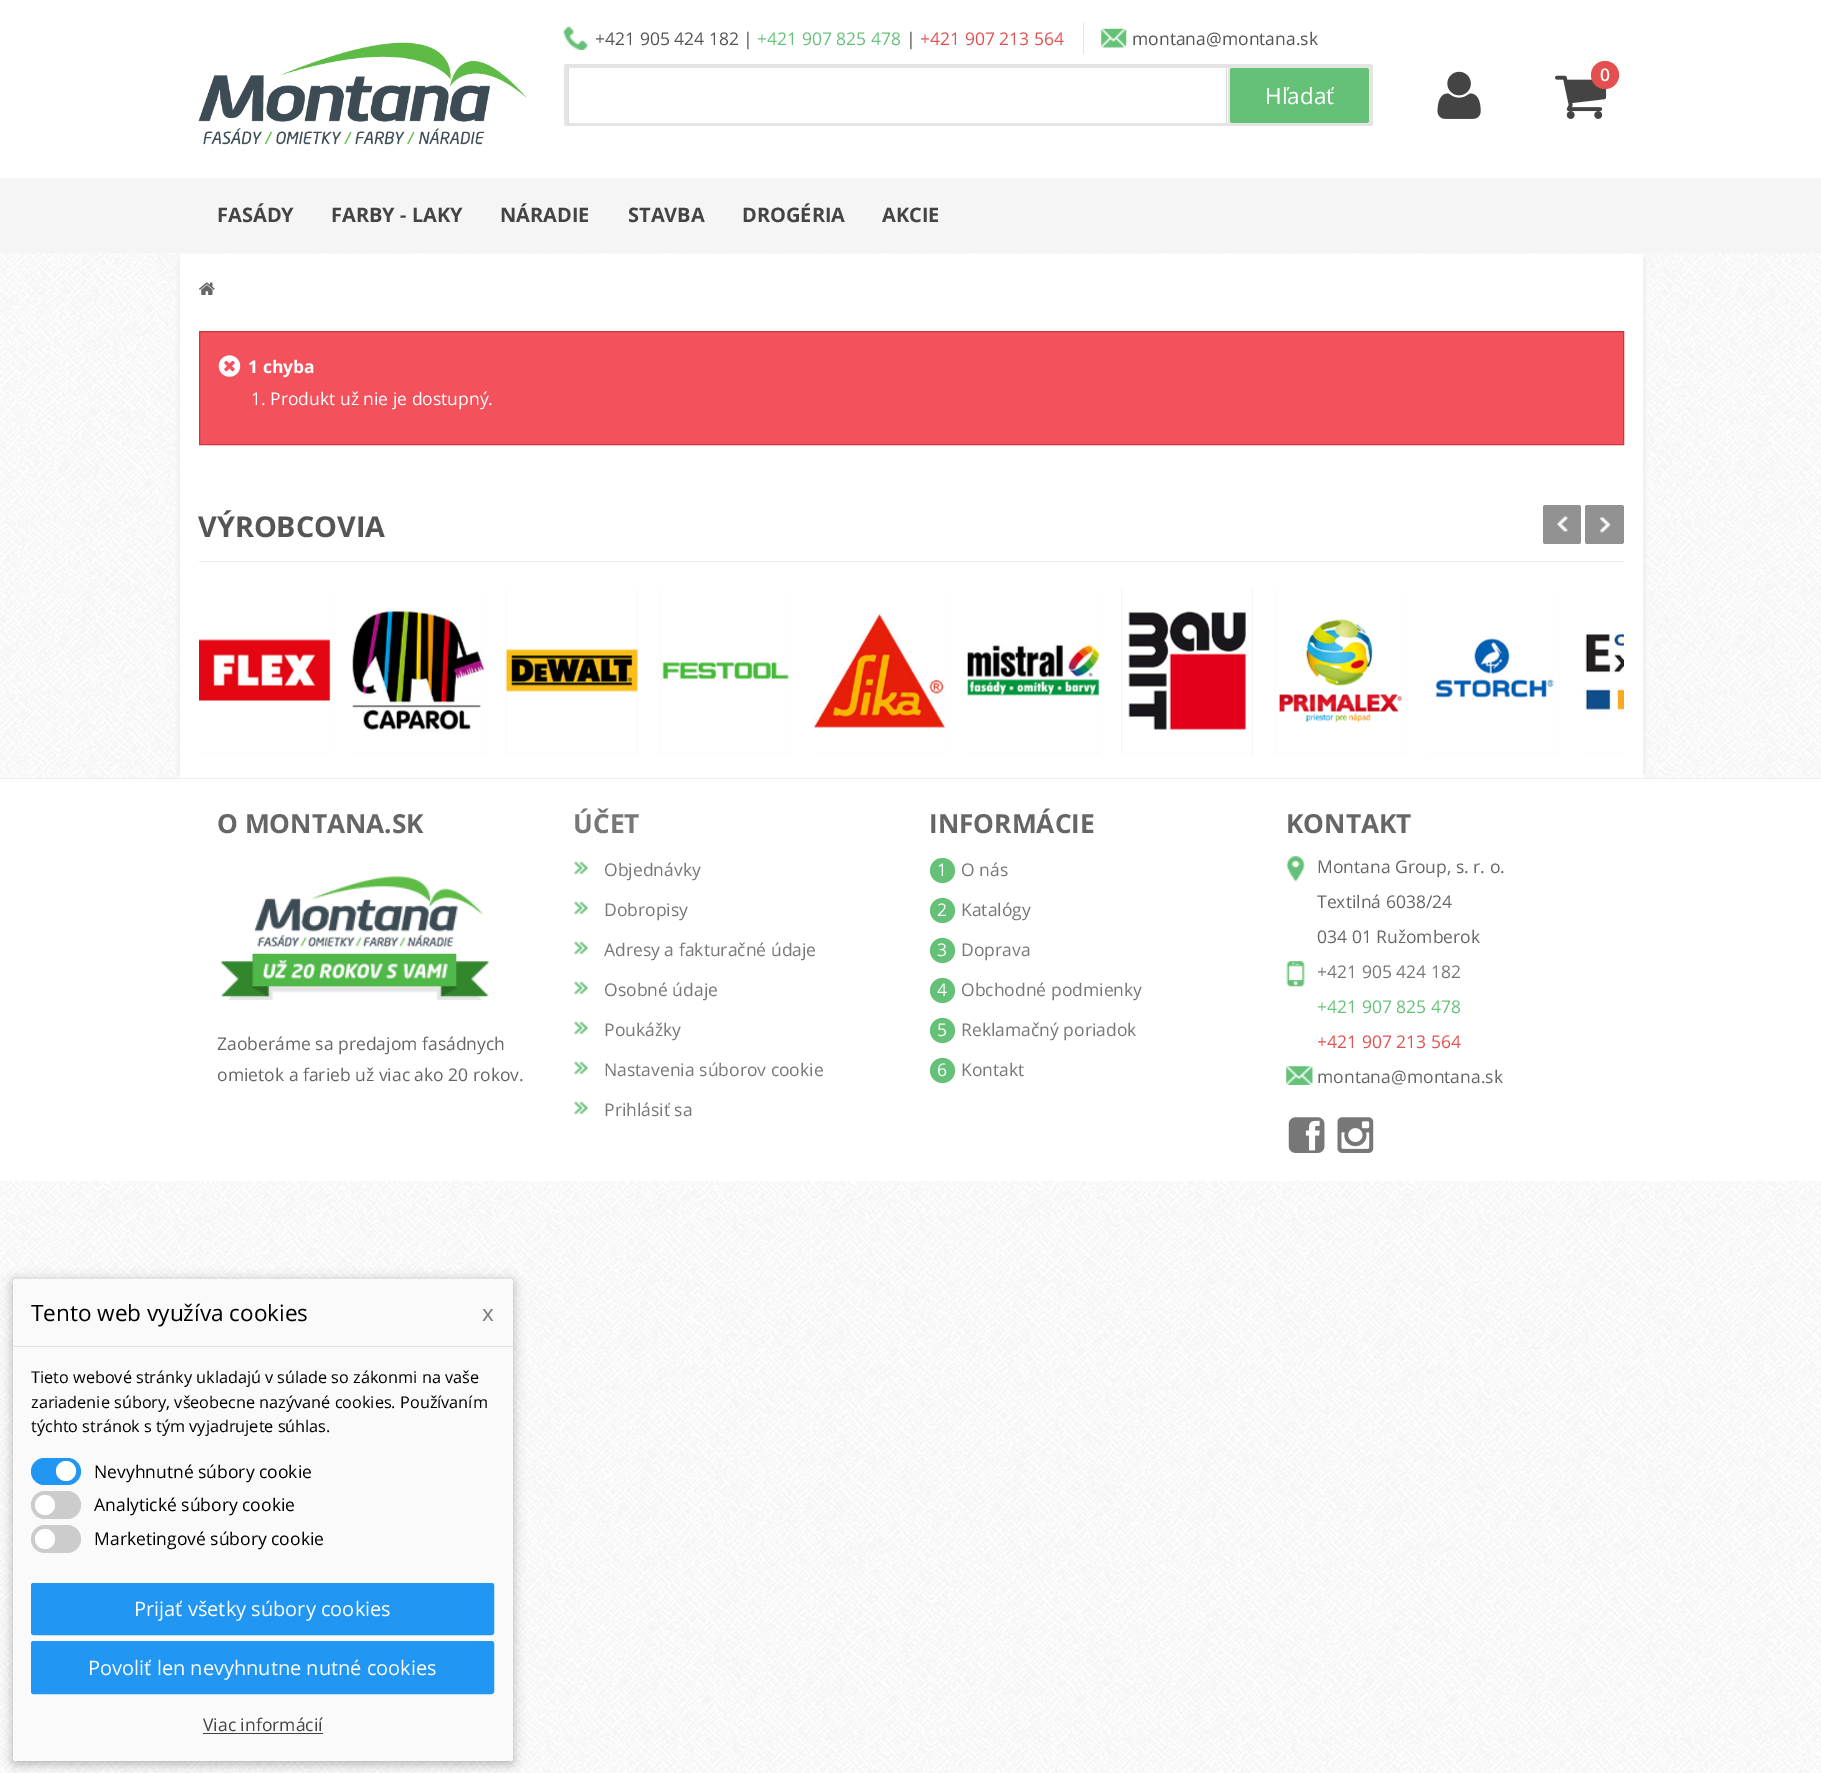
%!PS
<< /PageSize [1821 1773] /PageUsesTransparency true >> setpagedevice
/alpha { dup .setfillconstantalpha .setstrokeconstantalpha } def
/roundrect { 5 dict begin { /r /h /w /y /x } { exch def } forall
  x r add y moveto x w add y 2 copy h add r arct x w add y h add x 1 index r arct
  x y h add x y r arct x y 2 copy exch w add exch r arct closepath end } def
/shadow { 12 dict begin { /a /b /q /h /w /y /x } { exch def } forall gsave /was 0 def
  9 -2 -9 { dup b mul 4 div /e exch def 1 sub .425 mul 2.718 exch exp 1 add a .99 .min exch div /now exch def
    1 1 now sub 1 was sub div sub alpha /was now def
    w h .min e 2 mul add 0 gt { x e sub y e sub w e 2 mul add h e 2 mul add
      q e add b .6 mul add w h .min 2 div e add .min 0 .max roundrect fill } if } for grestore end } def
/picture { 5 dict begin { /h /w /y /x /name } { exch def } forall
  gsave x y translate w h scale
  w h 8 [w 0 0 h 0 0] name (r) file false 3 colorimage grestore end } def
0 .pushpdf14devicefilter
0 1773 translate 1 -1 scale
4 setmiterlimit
1 setgray
0 0 1821 1773 rectfill
(img1.rgb) 0 253 1821 1520 picture
(img2.rgb) 198 42 329 103 picture
(img3.rgb) 563 26 25 24 picture
0.886 setgray
1083 23 1 31 rectfill
/OpenSans-Regular [17.5 0 0 -17.5 0 0] selectfont
0.333 setgray
595 45 moveto (+421 905 424 182 |) show
0.396 0.757 0.471 setrgbcolor
757 45 moveto (+421 907 825 478) show
0.333 setgray
906 45 moveto (|) show
0.894 0.31 0.31 setrgbcolor
920 45 moveto (+421 907 213 564) show
(img4.rgb) 1101 28 26 20 picture
0.333 setgray
1132 45 moveto (montana@montana.sk) show
0.894 setgray
564 64 809 62 2.5 roundrect fill
1 setgray
569 68 659 55 rectfill
0.867 setgray
1226 68 1 55 rectfill
568 68 1 55 rectfill
0.396 0.757 0.471 setrgbcolor
1230 68 139 55 2.5 roundrect fill
/OpenSans-Regular [22.5 0 0 -22.5 0 0] selectfont
1 setgray
1265 104 moveto (Hľadať) show
(img5.rgb) 1437 71 44 48 picture
(img6.rgb) 1555 75 52 44 picture
0.894 0.31 0.31 setrgbcolor
newpath 1605 75 14 0 360 arc closepath fill
/OpenSans-SemiBold [17.5 0 0 -17.5 0 0] selectfont
1 setgray
1600 81 moveto (0) show
0.929 setgray
178 258 1455 516 0 2 1 shadow
190 258 1455 516 0 2 1 shadow
0.961 setgray
0 178 1821 75 rectfill
/OpenSans-Bold [20 0 0 -20 0 0] selectfont
0.267 setgray
217 222 moveto (FASÁDY) show
331 222 moveto (FARBY - LAKY) show
500 222 moveto (NÁRADIE) show
628 222 moveto (STAVBA) show
742 222 moveto (DROGÉRIA) show
882 222 moveto (AKCIE) show
1 setgray
180 254 1463 524 rectfill
(img7.rgb) 199 282 16 13 picture
0.953 0.318 0.361 setrgbcolor
newpath 199.5 331.5 moveto 1623.5 331.5 lineto 1623.5 444.5 lineto 199.5 444.5 lineto closepath gsave fill grestore
0.831 0.196 0.239 setrgbcolor
stroke
(img8.rgb) 218 355 23 22 picture
/OpenSans-Bold [17.5 0 0 -17.5 0 0] selectfont
1 setgray
248 373 moveto (1 chyba) show
/OpenSans-Regular [17.5 0 0 -17.5 0 0] selectfont
251 405 moveto (1. Produkt už nie je dostupný.) show
0.569 setgray
1543 505 38 39 2.5 roundrect fill
(img9.rgb) 1557 516 11 16 picture
1585 505 39 39 2.5 roundrect fill
(img10.rgb) 1599 516 12 17 picture
0.965 setgray
199 588 131 166 rectfill
(img11.rgb) 199 588 132 166 picture
353 588 131 166 rectfill
(img12.rgb) 352 588 132 166 picture
506 588 132 166 rectfill
(img13.rgb) 505 588 133 166 picture
660 588 131 166 rectfill
(img14.rgb) 660 588 131 166 picture
814 588 131 166 rectfill
(img15.rgb) 813 588 132 166 picture
968 588 131 166 rectfill
(img16.rgb) 967 588 132 166 picture
1121 588 132 166 rectfill
(img17.rgb) 1122 588 130 166 picture
1275 588 131 166 rectfill
(img18.rgb) 1275 588 131 166 picture
1429 588 131 166 rectfill
(img19.rgb) 1429 588 131 166 picture
1583 588 41 166 rectfill
(img20.rgb) 1583 588 41 166 picture
0.929 setgray
199 561 1425 1 rectfill
/OpenSans-Bold [28.75 0 0 -28.75 0 0] selectfont
0.333 setgray
198 537 moveto (VÝROBCOVIA) show
1 setgray
0 779 1821 402 rectfill
0.929 setgray
0 778 1821 1 rectfill
/OpenSans-Bold [26.25 0 0 -26.25 0 0] selectfont
0.4 setgray
217 833 moveto (O MONTANA.SK) show
(img21.rgb) 221 876 268 124 picture
/OpenSans-Regular [17.5 0 0 -17.5 0 0] selectfont
217 1050 moveto (Zaoberáme sa predajom fasádnych) show
217 1081 moveto (omietok a farieb už viac ako 20 rokov.) show
/OpenSans-Bold [26.25 0 0 -26.25 0 0] selectfont
0.467 setgray
573 833 moveto (ÚČET) show
(img22.rgb) 573 861 15 14 picture
/OpenSans-Regular [17.5 0 0 -17.5 0 0] selectfont
604 876 moveto (Objednávky) show
(img22.rgb) 573 901 15 14 picture
604 916 moveto (Dobropisy) show
(img22.rgb) 573 941 15 14 picture
604 956 moveto (Adresy a fakturačné údaje) show
(img22.rgb) 573 981 15 14 picture
604 996 moveto (Osobné údaje) show
(img23.rgb) 573 1021 15 14 picture
604 1036 moveto (Poukážky) show
(img22.rgb) 573 1061 15 14 picture
604 1076 moveto (Nastavenia súborov cookie) show
(img22.rgb) 573 1101 15 14 picture
604 1116 moveto (Prihlásiť sa) show
/OpenSans-Bold [26.25 0 0 -26.25 0 0] selectfont
0.4 setgray
929 833 moveto (INFORMÁCIE) show
0.396 0.757 0.471 setrgbcolor
newpath 942.5 870.5 12.5 0 360 arc closepath fill
/OpenSans-Regular [17.5 0 0 -17.5 0 0] selectfont
1 setgray
937 876 moveto (1) show
0.467 setgray
961 876 moveto (O nás) show
0.396 0.757 0.471 setrgbcolor
newpath 942.5 910.5 12.5 0 360 arc closepath fill
1 setgray
937 916 moveto (2) show
0.467 setgray
961 916 moveto (Katalógy) show
0.396 0.757 0.471 setrgbcolor
newpath 942.5 950.5 12.5 0 360 arc closepath fill
1 setgray
937 956 moveto (3) show
0.467 setgray
961 956 moveto (Doprava) show
0.396 0.757 0.471 setrgbcolor
newpath 942.5 990.5 12.5 0 360 arc closepath fill
1 setgray
937 996 moveto (4) show
0.467 setgray
961 996 moveto (Obchodné podmienky) show
0.396 0.757 0.471 setrgbcolor
newpath 942.5 1030.5 12.5 0 360 arc closepath fill
1 setgray
937 1036 moveto (5) show
0.467 setgray
961 1036 moveto (Reklamačný poriadok) show
0.396 0.757 0.471 setrgbcolor
newpath 942.5 1070.5 12.5 0 360 arc closepath fill
1 setgray
937 1076 moveto (6) show
0.467 setgray
961 1076 moveto (Kontakt) show
/OpenSans-Bold [26.25 0 0 -26.25 0 0] selectfont
0.4 setgray
1286 833 moveto (KONTAKT) show
(img24.rgb) 1286 856 19 26 picture
/OpenSans-Regular [17.5 0 0 -17.5 0 0] selectfont
1317 873 moveto (Montana Group, s. r. o.) show
1317 908 moveto (Textilná 6038/24) show
1317 943 moveto (034 01 Ružomberok) show
(img25.rgb) 1286 961 19 26 picture
0.467 setgray
1317 978 moveto (+421 905 424 182) show
0.396 0.757 0.471 setrgbcolor
1317 1013 moveto (+421 907 825 478) show
0.894 0.31 0.31 setrgbcolor
1317 1048 moveto (+421 907 213 564) show
(img26.rgb) 1286 1066 27 19 picture
0.4 setgray
1317 1083 moveto (montana@montana.sk) show
(img27.rgb) 1288 1117 37 36 picture
(img28.rgb) 1337 1117 37 36 picture
0 setgray
13 1281 500 483 2.5 6 0.3 shadow
0.98 setgray
13 1279 500 482 2.5 roundrect fill
0.871 0.886 0.902 setrgbcolor
13 1346 500 1 rectfill
/OpenSans-Regular [22.5 0 0 -22.5 0 0] selectfont
0 setgray
31 1321 moveto (Tento web využíva cookies) show
0.467 setgray
482 1321 moveto (x) show
/OpenSans-Regular [16.25 0 0 -16.25 0 0] selectfont
0 setgray
31 1383 moveto (Tieto webové stránky ukladajú v súlade so zákonmi na vaše) show
31 1408 moveto (zariadenie súbory, všeobecne nazývané cookies. Používaním) show
31 1432 moveto (týchto stránok s tým vyjadrujete súhlas.) show
0.129 0.588 0.953 setrgbcolor
31 1458 50 27 13.5 roundrect fill
1 setgray
newpath 66 1471 10 0 360 arc closepath fill
/OpenSans-Regular [17.5 0 0 -17.5 0 0] selectfont
0 setgray
94 1478 moveto (Nevyhnutné súbory cookie) show
0.8 setgray
31 1491 50 28 14 roundrect fill
1 setgray
newpath 45 1505 10 0 360 arc closepath fill
0 setgray
94 1511 moveto (Analytické súbory cookie) show
0.8 setgray
31 1525 50 28 14 roundrect fill
1 setgray
newpath 45 1539 10 0 360 arc closepath fill
0 setgray
94 1545 moveto (Marketingové súbory cookie) show
0.129 0.588 0.953 setrgbcolor
31.5 1583.5 462 51 2 roundrect gsave fill grestore
stroke
/OpenSans-Regular [20 0 0 -20 0 0] selectfont
1 setgray
134 1616 moveto (Prijať všetky súbory cookies) show
0.129 0.588 0.953 setrgbcolor
31.5 1641.5 462 52 2 roundrect gsave fill grestore
stroke
1 setgray
88 1675 moveto (Povoliť len nevyhnutne nutné cookies) show
/OpenSans-Regular [17.5 0 0 -17.5 0 0] selectfont
0.267 setgray
203 1731 moveto (Viac informácií) show
0.247 setgray
203 1733 120 1 rectfill
.poppdf14devicefilter showpage
